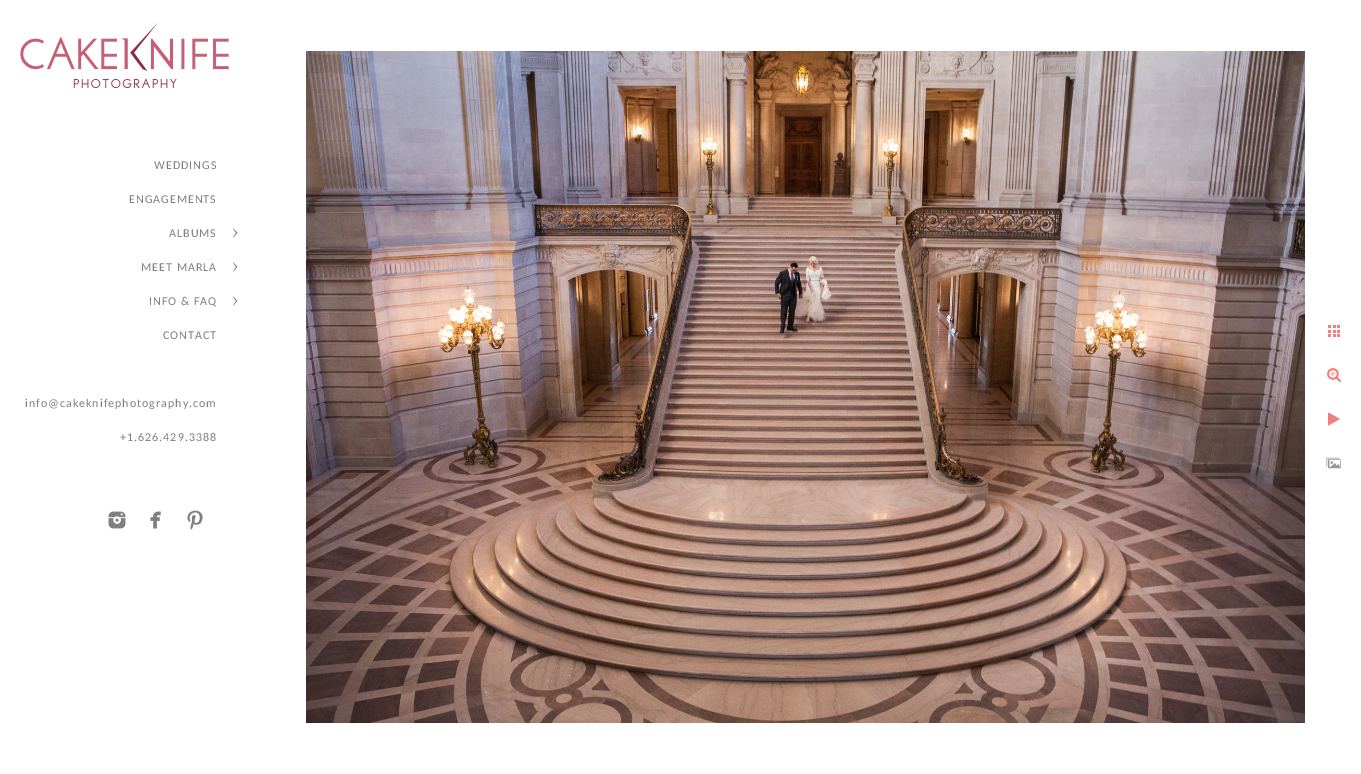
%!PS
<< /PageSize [1361 774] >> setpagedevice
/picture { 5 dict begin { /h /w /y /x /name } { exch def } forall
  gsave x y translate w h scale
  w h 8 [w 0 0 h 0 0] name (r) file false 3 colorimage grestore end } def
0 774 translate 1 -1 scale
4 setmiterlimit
1 setgray
0 0 1361 774 rectfill
(img1.rgb) 20 22 209 67 picture
/Carlito-Regular [12 0 0 -12 0 0] selectfont
0.502 setgray
154 169 moveto 1 0 (WEDDINGS) ashow
129 203 moveto 1 0 (ENGAGEMENTS) ashow
169 237 moveto 1 0 (ALBUMS) ashow
(img2.rgb) 232 228 6 10 picture
141 271 moveto 1 0 (MEET MARLA) ashow
(img2.rgb) 232 262 6 10 picture
149 305 moveto 1 0 (INFO & FAQ) ashow
(img2.rgb) 232 296 6 10 picture
163 339 moveto 1 0 (CONTACT) ashow
25 407 moveto 1 0 (info@cakeknifephotography.com) ashow
120 441 moveto 1 0 (+1.626.429.3388) ashow
(img3.rgb) 108 511 18 18 picture
(img4.rgb) 150 511 11 18 picture
(img5.rgb) 187 510 16 20 picture
(img6.rgb) 306 51 999 672 picture
(img7.rgb) 1328 325 12 12 picture
(img8.rgb) 1327 368 14 14 picture
(img9.rgb) 1328 412 12 14 picture
(img10.rgb) 1326 457 15 12 picture
showpage
